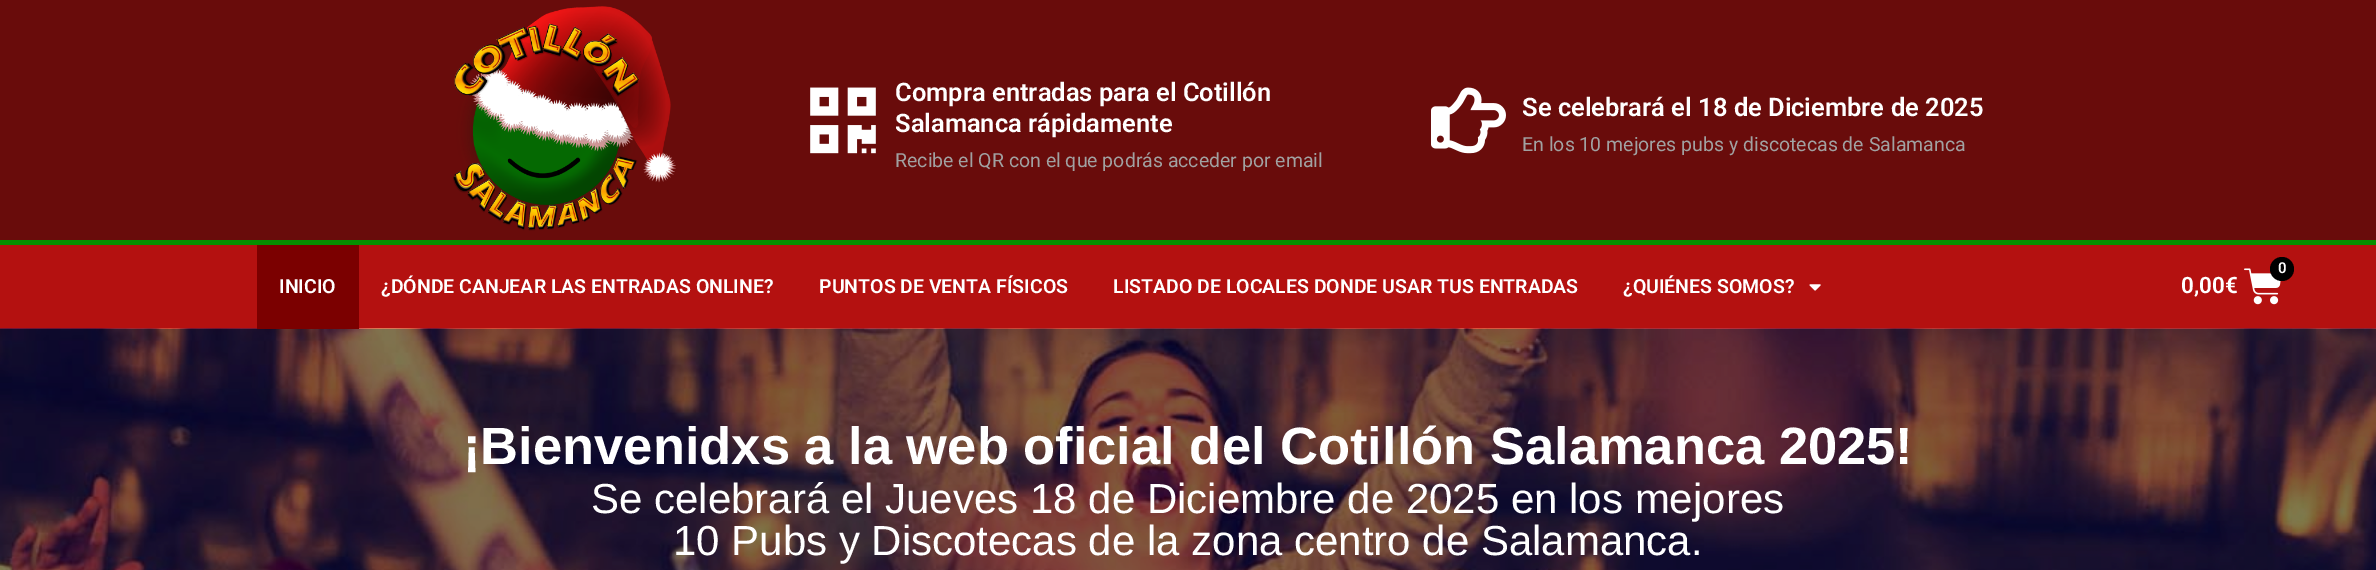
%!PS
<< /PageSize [2376 570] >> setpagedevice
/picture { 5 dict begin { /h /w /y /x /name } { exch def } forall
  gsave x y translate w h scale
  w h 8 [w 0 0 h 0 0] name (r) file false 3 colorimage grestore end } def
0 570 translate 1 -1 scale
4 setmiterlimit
0.412 0.047 0.043 setrgbcolor
0 0 2376 570 rectfill
(img1.rgb) 452 6 224 225 picture
(img2.rgb) 810 87 66 67 picture
/Roboto-SemiBold [25.5 0 0 -25.5 0 0] selectfont
1 setgray
895 101 moveto (Compra entradas para el Cotillón) show
895 132 moveto (Salamanca rápidamente) show
/Roboto-Regular [19.5 0 0 -19.5 0 0] selectfont
0.631 setgray
895 167 moveto (Recibe el QR con el que podrás acceder por email) show
(img3.rgb) 1431 87 75 67 picture
/Roboto-SemiBold [25.5 0 0 -25.5 0 0] selectfont
1 setgray
1522 116 moveto (Se celebrará el 18 de Diciembre de 2025) show
/Roboto-Regular [19.5 0 0 -19.5 0 0] selectfont
0.631 setgray
1522 151 moveto (En los 10 mejores pubs y discotecas de Salamanca) show
0.706 0.067 0.063 setrgbcolor
0 245 2376 84 rectfill
0.024 0.557 0 setrgbcolor
0 240 2376 5 rectfill
(img6.rgb) 0 328 2376 242 picture
0.482 0 0 setrgbcolor
257 245 102 84 rectfill
/Roboto-SemiBold [19.5 0 0 -19.5 0 0] selectfont
1 setgray
279 293 moveto (INICIO) show
381 293 moveto (¿DÓNDE CANJEAR LAS ENTRADAS ONLINE?) show
819 293 moveto (PUNTOS DE VENTA FÍSICOS) show
1113 293 moveto (LISTADO DE LOCALES DONDE USAR TUS ENTRADAS) show
1623 293 moveto (¿QUIÉNES SOMOS?) show
(img4.rgb) 1809 284 12 7 picture
(img5.rgb) 2244 268 37 37 picture
0 setgray
newpath 2282 269 12 0 360 arc closepath fill
/Roboto-SemiBold [15 0 0 -15 0 0] selectfont
1 setgray
2278 273 moveto (0) show
/Roboto-SemiBold [22.5 0 0 -22.5 0 0] selectfont
2181 293 moveto (0,00€) show
/LiberationSans-Bold [52.5 0 0 -52.5 0 0] selectfont
463 464 moveto (¡Bienvenidxs a la web oficial del Cotillón Salamanca 2025!) show
/LiberationSans-Regular [42 0 0 -42 0 0] selectfont
591 513 moveto (Se celebrará el Jueves 18 de Diciembre de 2025 en los mejores) show
673 555 moveto (10 Pubs y Discotecas de la zona centro de Salamanca.) show
showpage
